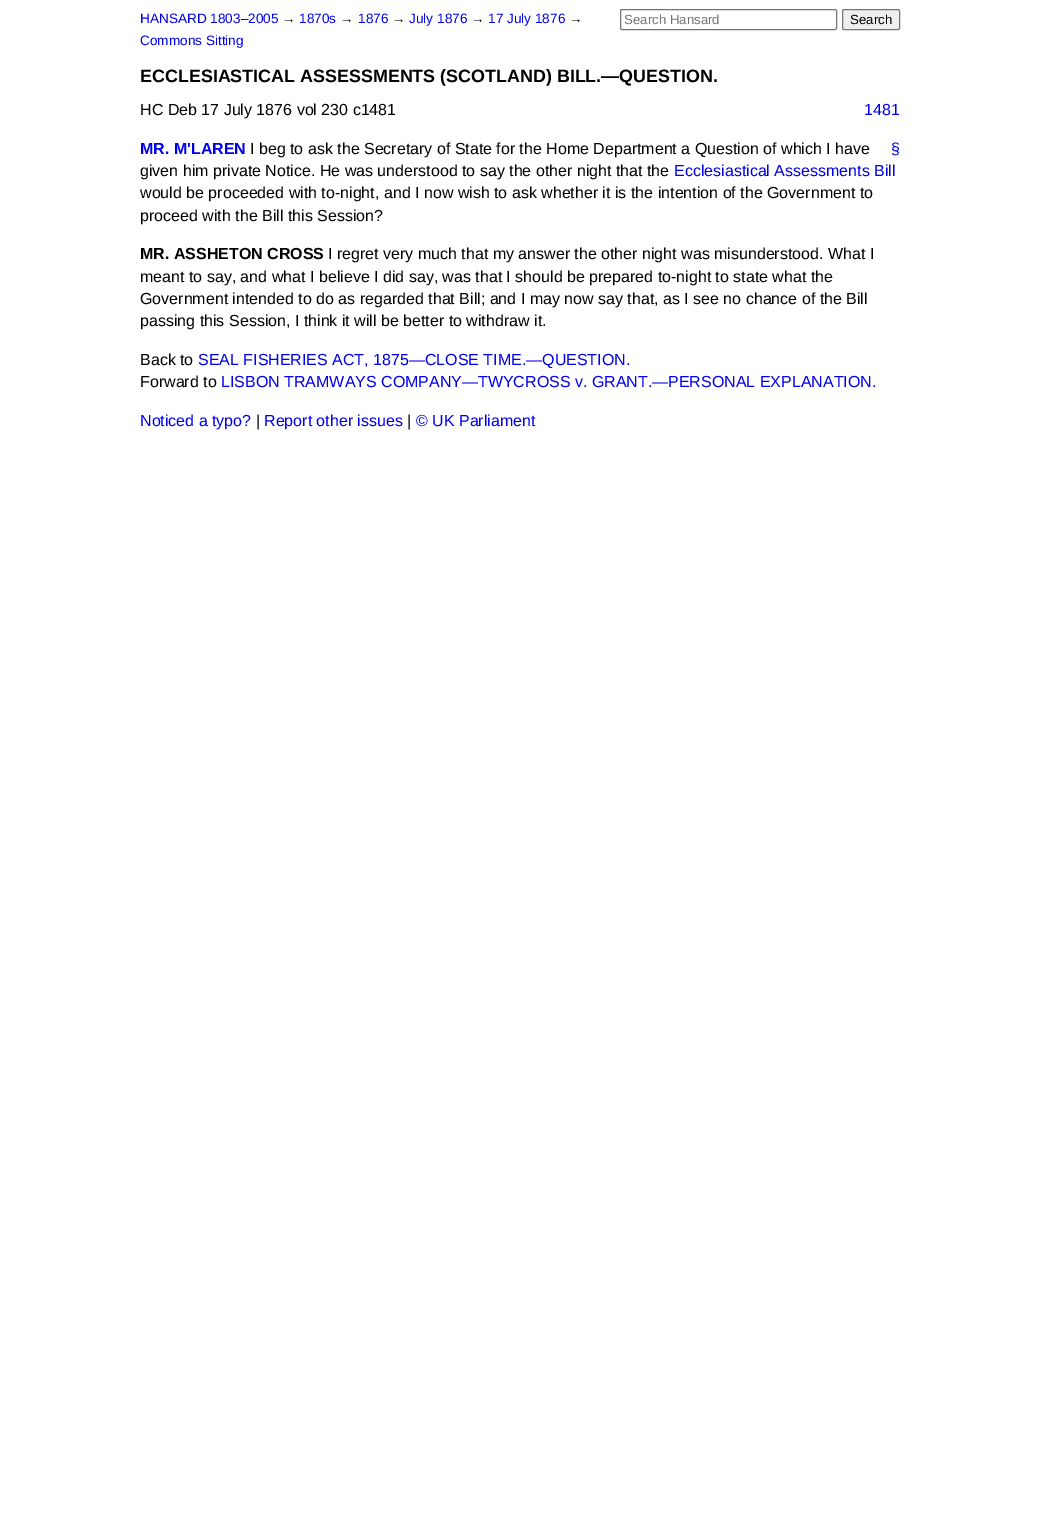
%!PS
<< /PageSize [1040 1523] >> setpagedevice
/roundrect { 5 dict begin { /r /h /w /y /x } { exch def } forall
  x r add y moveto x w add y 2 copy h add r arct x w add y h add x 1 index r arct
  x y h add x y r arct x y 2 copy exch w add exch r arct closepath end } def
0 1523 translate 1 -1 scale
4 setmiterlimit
1 setgray
0 0 1040 1523 rectfill
/LiberationSans-Regular [13.6 0 0 -13.6 0 0] selectfont
0 0 0.933 setrgbcolor
140 23 moveto (HANSARD 1803–2005) show
0 setgray
282 23 moveto (→) show
0 0 0.933 setrgbcolor
299 23 moveto (1870s) show
0 setgray
340 23 moveto (→) show
0 0 0.933 setrgbcolor
358 23 moveto (1876) show
0 setgray
392 23 moveto (→) show
0 0 0.933 setrgbcolor
409 23 moveto (July 1876) show
0 setgray
471 23 moveto (→) show
0 0 0.933 setrgbcolor
488 23 moveto (17 July 1876) show
0 setgray
569 23 moveto (→) show
0 0 0.933 setrgbcolor
140 45 moveto (Commons Sitting) show
0.463 setgray
620.5 9.5 216 20 1.5 roundrect stroke
/LiberationSans-Regular [13.25 0 0 -13.25 0 0] selectfont
0.459 setgray
624 24 moveto (Search Hansard) show
0.937 setgray
842.5 9.5 57 20 1.5 roundrect gsave fill grestore
0.463 setgray
stroke
0 setgray
850 24 moveto (Search) show
/LiberationSans-Bold [17.9 0 0 -17.9 0 0] selectfont
140 82 moveto (ECCLESIASTICAL ASSESSMENTS \(SCOTLAND\) BILL.—QUESTION.) show
/LiberationSans-Regular [16 0 0 -16 0 0] selectfont
140 115 moveto (HC Deb 17 July 1876 vol 230 c1481) show
0 0 0.933 setrgbcolor
864 115 moveto (1481) show
/LiberationSans-Bold [16 0 0 -16 0 0] selectfont
140 154 moveto (MR. M'LAREN) show
/LiberationSans-Regular [16 0 0 -16 0 0] selectfont
0 setgray
250 154 moveto (I beg to ask the Secretary of State for the Home Department a Question of which I have) show
0 0 0.933 setrgbcolor
891 154 moveto (§) show
0 setgray
140 176 moveto (given him private Notice. He was understood to say the other night that the) show
0 0 0.933 setrgbcolor
674 176 moveto (Ecclesiastical Assessments Bill) show
0 setgray
140 198 moveto (would be proceeded with to-night, and I now wish to ask whether it is the intention of the Government to) show
140 221 moveto (proceed with the Bill this Session?) show
/LiberationSans-Bold [16 0 0 -16 0 0] selectfont
140 259 moveto (MR. ASSHETON CROSS) show
/LiberationSans-Regular [16 0 0 -16 0 0] selectfont
328 259 moveto (I regret very much that my answer the other night was misunderstood. What I) show
140 282 moveto (meant to say, and what I believe I did say, was that I should be prepared to-night to state what the) show
140 304 moveto (Government intended to do as regarded that Bill; and I may now say that, as I see no chance of the Bill) show
140 326 moveto (passing this Session, I think it will be better to withdraw it.) show
140 365 moveto (Back to) show
0 0 0.933 setrgbcolor
198 365 moveto (SEAL FISHERIES ACT, 1875—CLOSE TIME.—QUESTION.) show
0 setgray
140 387 moveto (Forward to) show
0 0 0.933 setrgbcolor
221 387 moveto (LISBON TRAMWAYS COMPANY—TWYCROSS v. GRANT.—PERSONAL EXPLANATION.) show
140 426 moveto (Noticed a typo?) show
0 setgray
256 426 moveto (|) show
0 0 0.933 setrgbcolor
264 426 moveto (Report other issues) show
0 setgray
407 426 moveto (|) show
0 0 0.933 setrgbcolor
416 426 moveto (© UK Parliament) show
showpage
